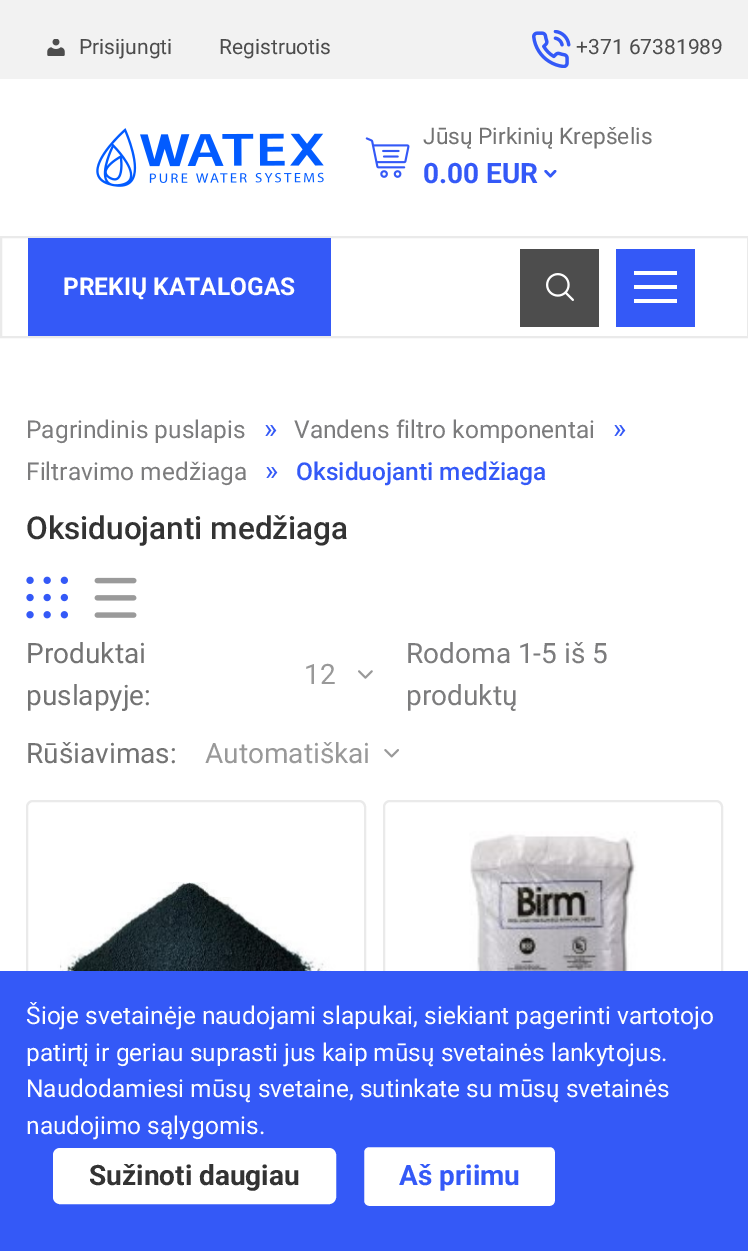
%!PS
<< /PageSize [748 1251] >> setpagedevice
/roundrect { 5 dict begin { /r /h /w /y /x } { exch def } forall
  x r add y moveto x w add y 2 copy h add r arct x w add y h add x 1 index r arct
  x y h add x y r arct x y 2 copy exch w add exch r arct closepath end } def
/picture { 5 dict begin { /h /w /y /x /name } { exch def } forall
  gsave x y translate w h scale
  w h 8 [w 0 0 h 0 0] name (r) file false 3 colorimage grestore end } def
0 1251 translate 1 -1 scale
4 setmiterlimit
1 setgray
0 0 748 1251 rectfill
0.949 setgray
0 0 748 79 rectfill
(img1.rgb) 47 39 18 17 picture
/Roboto-Regular [21 0 0 -21 0 0] selectfont
0.302 setgray
79 54 moveto (Prisijungti) show
219 54 moveto (Registruotis) show
(img2.rgb) 532 30 39 38 picture
576 54 moveto (+371 67381989) show
(img3.rgb) 96 128 228 59 picture
(img4.rgb) 365 137 45 41 picture
/Roboto-Regular [22.75 0 0 -22.75 0 0] selectfont
0.451 setgray
423 144 moveto (Jūsų Pirkinių Krepšelis) show
/Roboto-Bold [28 0 0 -28 0 0] selectfont
0.204 0.349 0.969 setrgbcolor
423 183 moveto (0.00 EUR) show
(img5.rgb) 544 170 13 8 picture
0.918 setgray
2 setlinewidth
1 237 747 100 rectstroke
0.204 0.349 0.969 setrgbcolor
28 238 303 98 rectfill
/Roboto-Bold [24.5 0 0 -24.5 0 0] selectfont
1 setgray
63 295 moveto (PREKIŲ KATALOGAS) show
0.302 setgray
520 249 79 78 rectfill
(img6.rgb) 546 273 28 28 picture
0.204 0.349 0.969 setrgbcolor
616 249 79 78 rectfill
1 setgray
634 271 43 4 rectfill
634 285 43 4 rectfill
634 299 43 4 rectfill
/Roboto-Regular [24.5 0 0 -24.5 0 0] selectfont
0.486 0.486 0.49 setrgbcolor
26 438 moveto (Pagrindinis puslapis) show
/Roboto-Regular [28 0 0 -28 0 0] selectfont
0.204 0.349 0.969 setrgbcolor
264 438 moveto (») show
/Roboto-Regular [24.5 0 0 -24.5 0 0] selectfont
0.486 0.486 0.49 setrgbcolor
294 438 moveto (Vandens filtro komponentai) show
/Roboto-Regular [28 0 0 -28 0 0] selectfont
0.204 0.349 0.969 setrgbcolor
613 438 moveto (») show
/Roboto-Regular [24.5 0 0 -24.5 0 0] selectfont
0.486 0.486 0.49 setrgbcolor
26 480 moveto (Filtravimo medžiaga) show
/Roboto-Regular [28 0 0 -28 0 0] selectfont
0.204 0.349 0.969 setrgbcolor
265 480 moveto (») show
/Roboto-Medium [24.5 0 0 -24.5 0 0] selectfont
296 480 moveto (Oksiduojanti medžiaga) show
/Roboto-Medium [31.5 0 0 -31.5 0 0] selectfont
0.2 setgray
26 539 moveto (Oksiduojanti medžiaga) show
(img7.rgb) 26 576 42 43 picture
(img8.rgb) 94 577 43 41 picture
/Roboto-Regular [28 0 0 -28 0 0] selectfont
0.451 setgray
26 663 moveto (Produktai) show
26 705 moveto (puslapyje:) show
0.6 setgray
304 684 moveto (12) show
(img9.rgb) 358 670 15 9 picture
0.486 0.486 0.49 setrgbcolor
406 663 moveto (Rodoma 1-5 iš 5) show
406 705 moveto (produktų) show
0.451 setgray
26 763 moveto (Rūšiavimas:) show
0.6 setgray
205 763 moveto (Automatiškai) show
(img10.rgb) 384 749 15 9 picture
0.918 setgray
27 801 338 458 6 roundrect stroke
(img11.rgb) 57 882 279 89 picture
384 801 338 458 6 roundrect stroke
(img12.rgb) 469 831 171 140 picture
0.204 0.349 0.969 setrgbcolor
0 971 748 280 rectfill
/Roboto-Regular [24.5 0 0 -24.5 0 0] selectfont
1 setgray
26 1024 moveto (Šioje svetainėje naudojami slapukai, siekiant pagerinti vartotojo) show
26 1061 moveto (patirtį ir geriau suprasti jus kaip mūsų svetainės lankytojus.) show
26 1097 moveto (Naudodamiesi mūsų svetaine, sutinkate su mūsų svetainės) show
26 1134 moveto (naudojimo sąlygomis.) show
54 1149 281 54 6 roundrect gsave fill grestore
stroke
/Roboto-Bold [28 0 0 -28 0 0] selectfont
0.2 setgray
89 1185 moveto (Sužinoti daugiau) show
1 setgray
363 1146 193 61 6 roundrect gsave fill grestore
0.204 0.349 0.969 setrgbcolor
stroke
399 1185 moveto (Aš priimu) show
showpage
